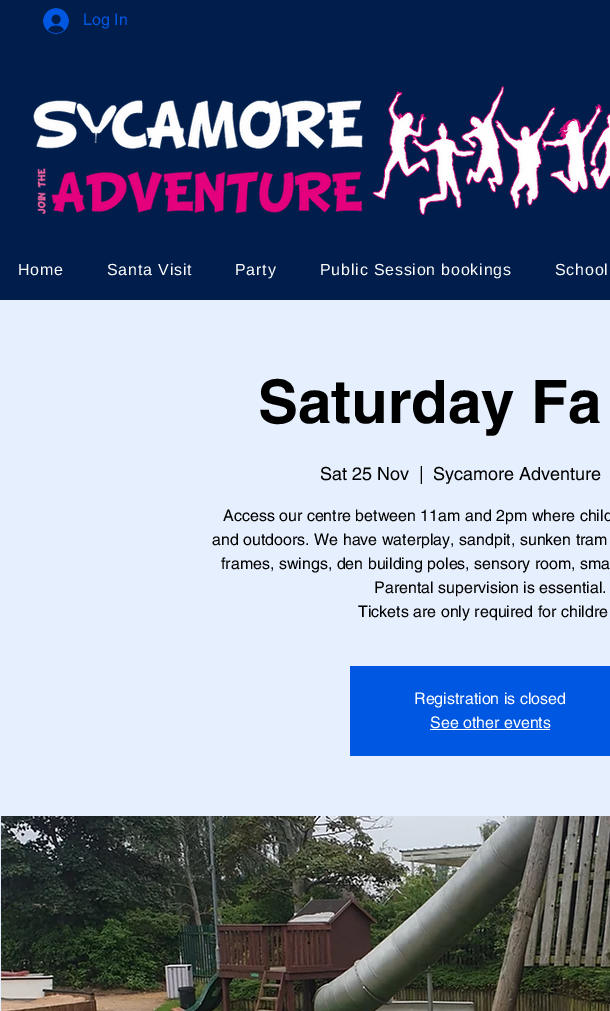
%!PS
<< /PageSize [610 1011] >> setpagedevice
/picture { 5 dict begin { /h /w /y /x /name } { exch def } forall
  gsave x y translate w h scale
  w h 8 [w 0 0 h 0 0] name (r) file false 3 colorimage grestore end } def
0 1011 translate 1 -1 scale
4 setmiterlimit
0.902 0.937 0.992 setrgbcolor
0 0 610 1011 rectfill
0 0.114 0.294 setrgbcolor
0 0 610 300 rectfill
(img1.rgb) 43 8 26 26 picture
/helvetica-Regular [16 0 0 -16 0 0] selectfont
0 0.341 0.882 setrgbcolor
83 25 moveto (Log In) show
(img2.rgb) 33 86 577 130 picture
/LiberationSans-Regular [16 0 0 -16 0 0] selectfont
1 setgray
18 275 moveto 0.8 0 (Home) ashow
107 275 moveto 0.8 0 (Santa Visit) ashow
235 275 moveto 0.8 0 (Party) ashow
320 275 moveto 0.8 0 (Public Session bookings) ashow
555 275 moveto 0.8 0 (School) ashow
/helvetica-Bold [60 0 0 -60 0 0] selectfont
0 setgray
258 423 moveto (Saturday Fa) show
/helvetica-Regular [18 0 0 -18 0 0] selectfont
320 480 moveto (Sat 25 Nov) show
419 480 moveto (|) show
433 480 moveto (Sycamore Adventure) show
/helvetica-Regular [16 0 0 -16 0 0] selectfont
223 521 moveto (Access our centre between 11am and 2pm where child) show
212 545 moveto (and outdoors. We have waterplay, sandpit, sunken tram) show
221 569 moveto (frames, swings, den building poles, sensory room, sma) show
374 593 moveto (Parental supervision is essential.) show
358 617 moveto (Tickets are only required for childre) show
0 0.341 0.882 setrgbcolor
350 666 260 90 rectfill
1 setgray
414 704 moveto (Registration is closed) show
430 728 moveto (See other events) show
430 729 120 1 rectfill
(img3.rgb) 1 816 609 195 picture
showpage
